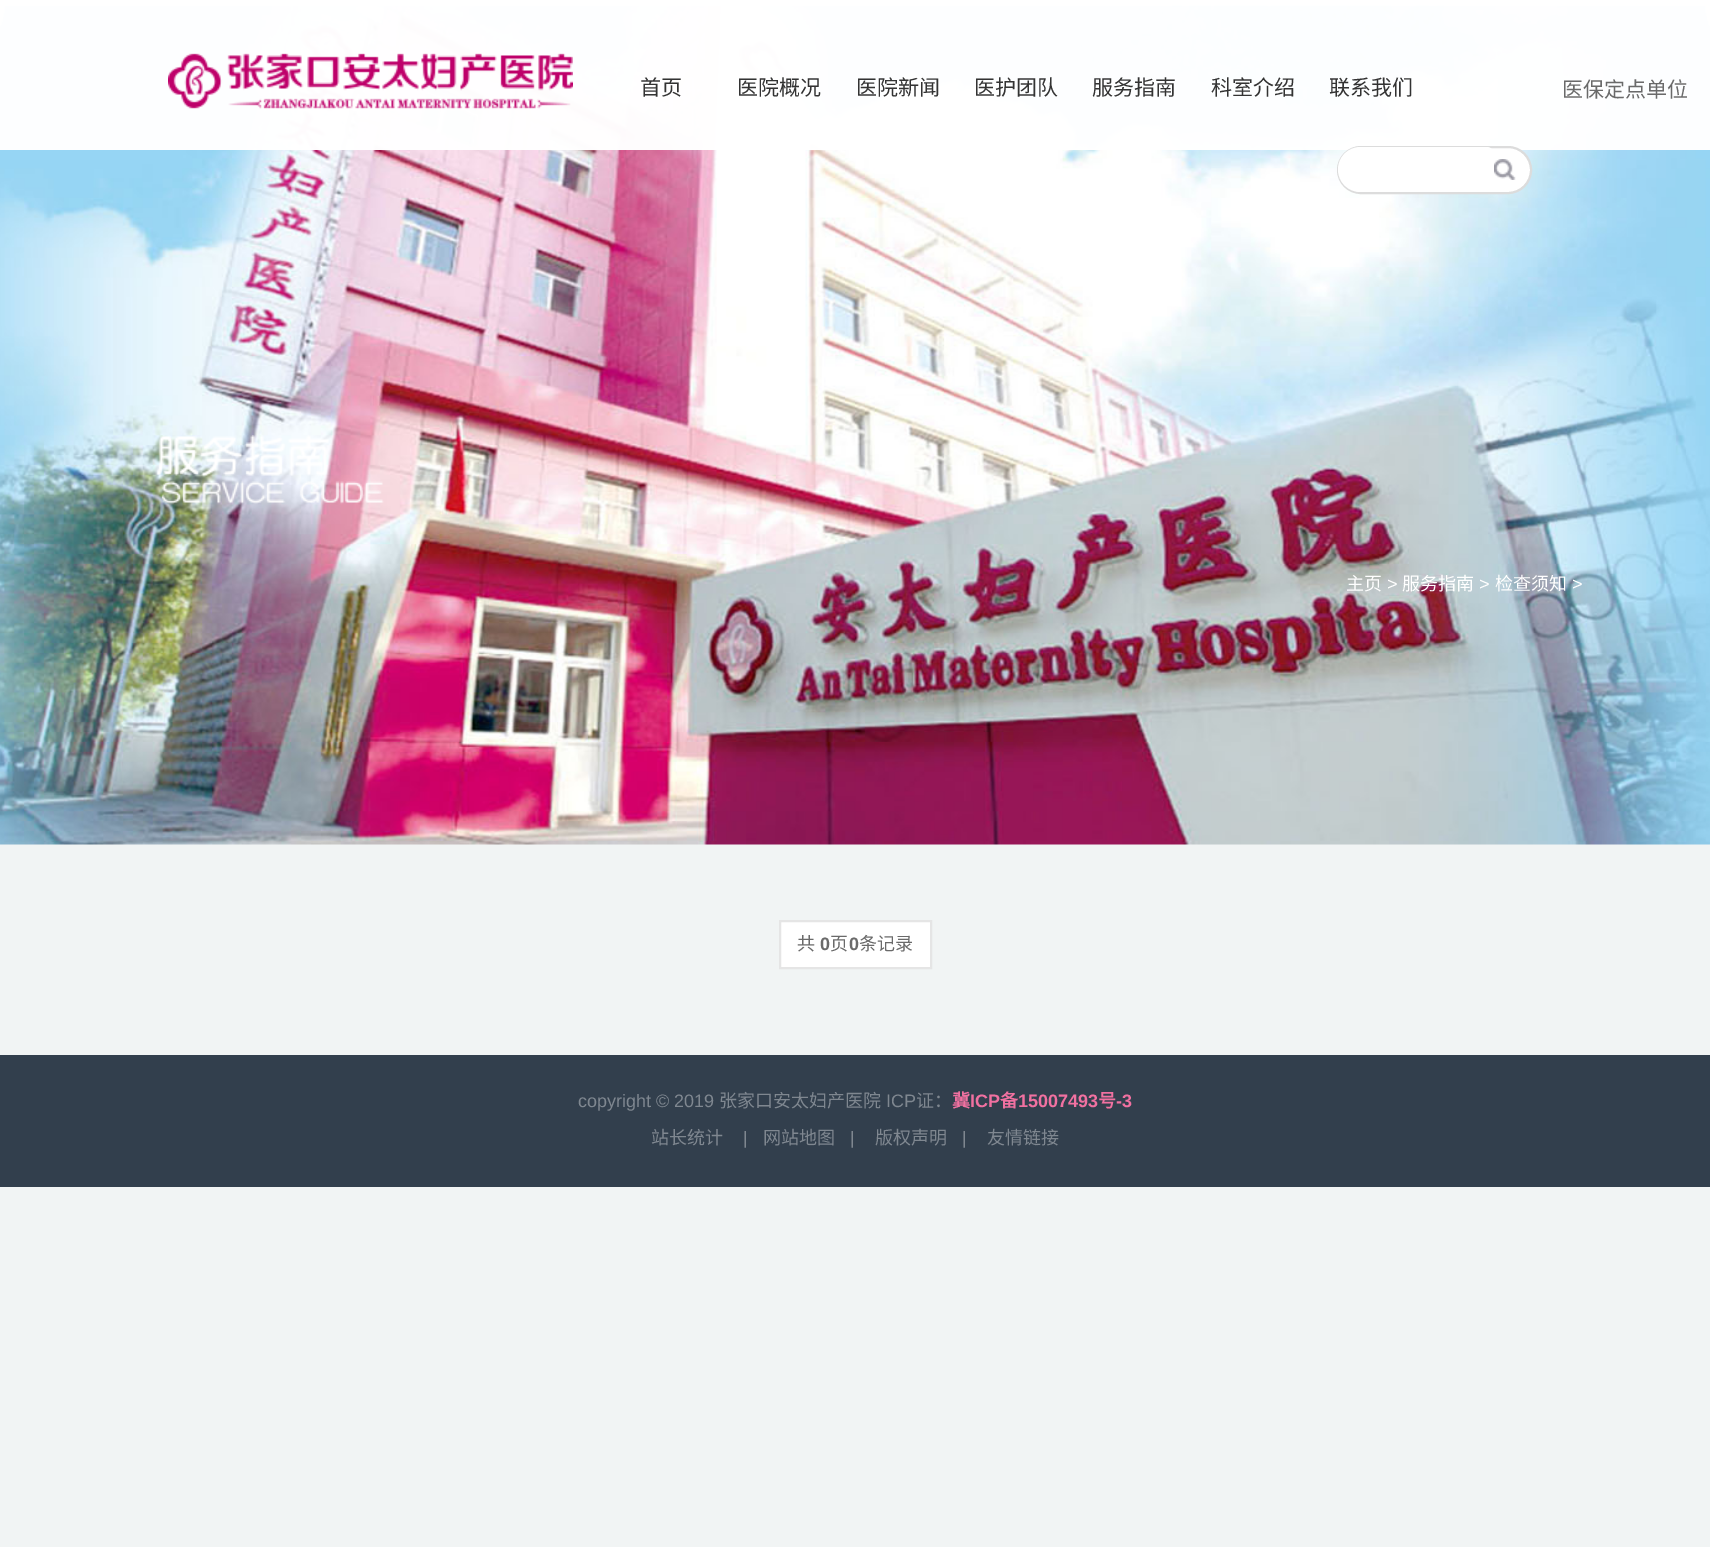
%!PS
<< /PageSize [1710 1547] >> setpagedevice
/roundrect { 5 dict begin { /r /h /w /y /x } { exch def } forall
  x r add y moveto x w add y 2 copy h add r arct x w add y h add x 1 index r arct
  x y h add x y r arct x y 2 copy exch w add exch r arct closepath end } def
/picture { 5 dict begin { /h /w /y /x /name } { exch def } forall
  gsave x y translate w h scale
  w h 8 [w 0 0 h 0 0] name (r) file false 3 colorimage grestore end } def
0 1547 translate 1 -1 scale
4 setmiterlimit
0.945 0.957 0.957 setrgbcolor
0 0 1710 1547 rectfill
(img4.rgb) 0 6 1710 839 picture
(img1.rgb) 0 0 1710 150 picture
(img2.rgb) 168 53 405 56 picture
/NotoSansCJKSC-Regular [21 0 0 -21 0 0] selectfont
0.2 setgray
640 95 moveto (首页) show
737 95 moveto (医院概况) show
856 95 moveto (医院新闻) show
974 95 moveto (医护团队) show
1092 95 moveto (服务指南) show
1211 95 moveto (科室介绍) show
1329 95 moveto (联系我们) show
0.416 setgray
1562 97 moveto (医保定点单位) show
1 setgray
1338 147 193 46 23 roundrect gsave fill grestore
0.863 setgray
2 setlinewidth
stroke
1 setgray
newpath 1360.5 147 moveto 1487 147 lineto 1490.5 147 1493 149.5 1493 153 curveto 1493 186 lineto 1493 189.5 1490.5 192 1487 192 curveto 1360.5 192 lineto 1348 192 1338 182 1338 169.5 curveto 1338 157 1348 147 1360.5 147 curveto closepath fill
(img3.rgb) 1494 159 22 21 picture
(img5.rgb) 157 435 227 70 picture
/NotoSansCJKSC-Regular [18 0 0 -18 0 0] selectfont
1346 590 moveto (主页) show
/LiberationSans-Regular [18 0 0 -18 0 0] selectfont
1387 590 moveto (>) show
/NotoSansCJKSC-Regular [18 0 0 -18 0 0] selectfont
1402 590 moveto (服务指南) show
/LiberationSans-Regular [18 0 0 -18 0 0] selectfont
1479 590 moveto (>) show
/NotoSansCJKSC-Regular [18 0 0 -18 0 0] selectfont
1495 590 moveto (检查须知) show
/LiberationSans-Regular [18 0 0 -18 0 0] selectfont
1572 590 moveto (>) show
newpath 780 921 moveto 931 921 lineto 931 968 lineto 780 968 lineto closepath gsave fill grestore
0.898 setgray
stroke
/NotoSansCJKSC-Regular [18 0 0 -18 0 0] selectfont
0.416 setgray
797 950 moveto (共) show
/LiberationSans-Bold [18 0 0 -18 0 0] selectfont
820 950 moveto (0) show
/NotoSansCJKSC-Regular [18 0 0 -18 0 0] selectfont
830 950 moveto (页) show
/LiberationSans-Bold [18 0 0 -18 0 0] selectfont
849 950 moveto (0) show
/NotoSansCJKSC-Regular [18 0 0 -18 0 0] selectfont
859 950 moveto (条记录) show
0.196 0.247 0.302 setrgbcolor
0 1055 1710 132 rectfill
/LiberationSans-Regular [18 0 0 -18 0 0] selectfont
0.498 0.529 0.565 setrgbcolor
578 1107 moveto (copyright © 2019) show
/NotoSansCJKSC-Regular [18 0 0 -18 0 0] selectfont
719 1107 moveto (张家口安太妇产医院) show
/LiberationSans-Regular [18 0 0 -18 0 0] selectfont
886 1107 moveto (ICP) show
/NotoSansCJKSC-Regular [18 0 0 -18 0 0] selectfont
916 1107 moveto (证：) show
/NotoSansCJKSC-Bold [18 0 0 -18 0 0] selectfont
0.945 0.443 0.631 setrgbcolor
952 1107 moveto (冀) show
/LiberationSans-Bold [18 0 0 -18 0 0] selectfont
970 1107 moveto (ICP) show
/NotoSansCJKSC-Bold [18 0 0 -18 0 0] selectfont
1000 1107 moveto (备) show
/LiberationSans-Bold [18 0 0 -18 0 0] selectfont
1018 1107 moveto (15007493) show
/NotoSansCJKSC-Bold [18 0 0 -18 0 0] selectfont
1098 1107 moveto (号) show
/LiberationSans-Bold [18 0 0 -18 0 0] selectfont
1116 1107 moveto (-3) show
/NotoSansCJKSC-Regular [18 0 0 -18 0 0] selectfont
0.498 0.529 0.565 setrgbcolor
651 1144 moveto (站长统计) show
/LiberationSans-Regular [18 0 0 -18 0 0] selectfont
743 1144 moveto (|) show
/NotoSansCJKSC-Regular [18 0 0 -18 0 0] selectfont
763 1144 moveto (网站地图) show
/LiberationSans-Regular [18 0 0 -18 0 0] selectfont
850 1144 moveto (|) show
/NotoSansCJKSC-Regular [18 0 0 -18 0 0] selectfont
875 1144 moveto (版权声明) show
/LiberationSans-Regular [18 0 0 -18 0 0] selectfont
962 1144 moveto (|) show
/NotoSansCJKSC-Regular [18 0 0 -18 0 0] selectfont
987 1144 moveto (友情链接) show
showpage
